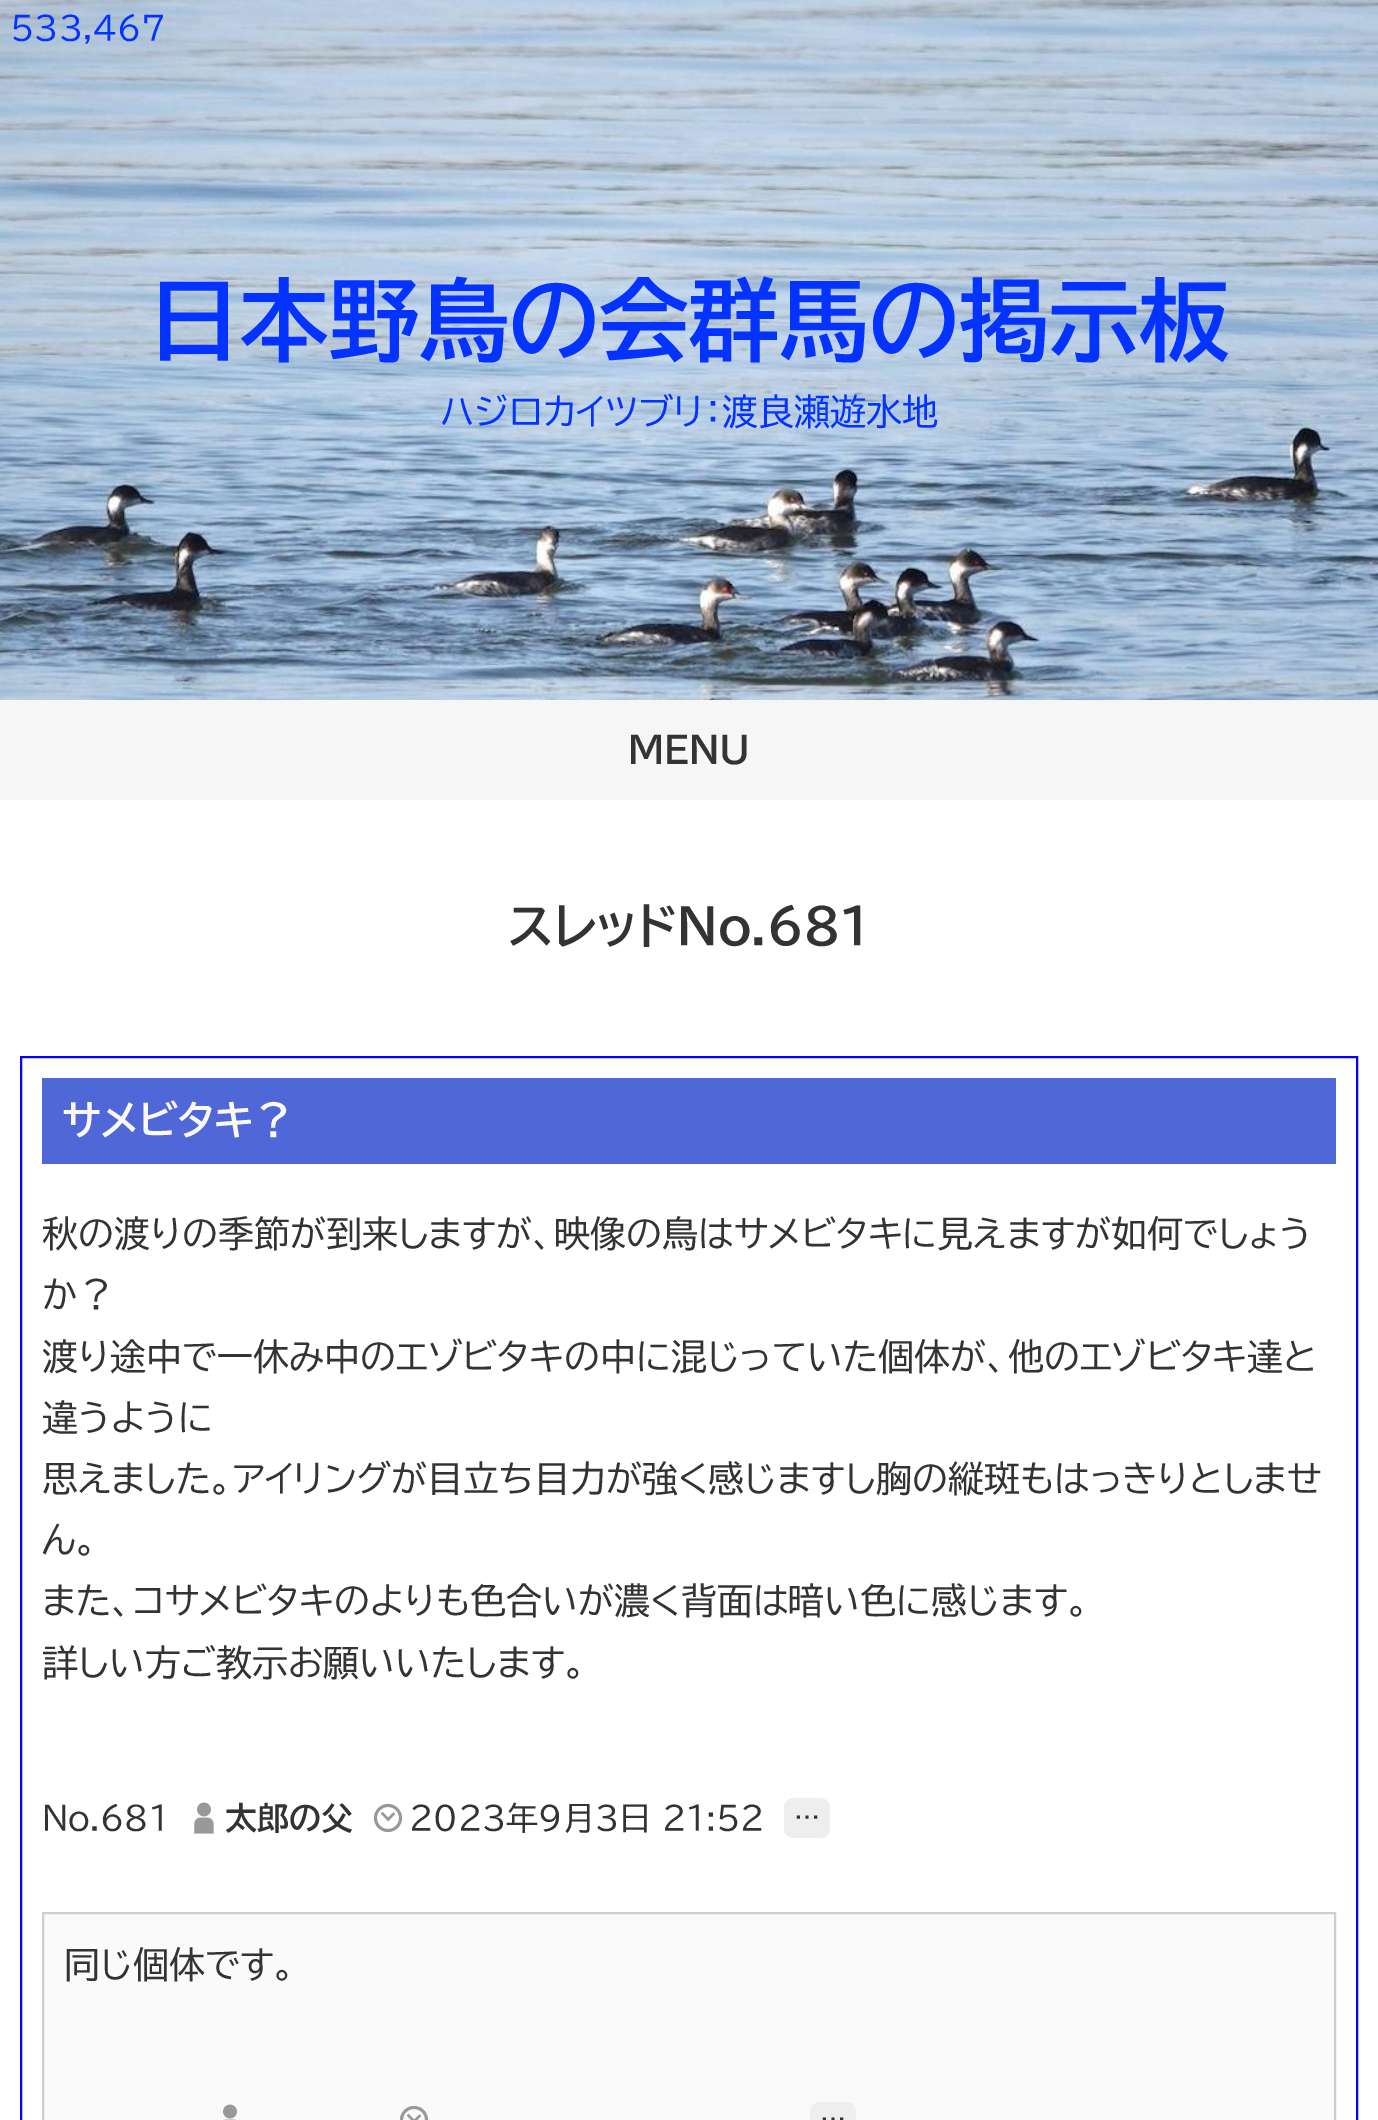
%!PS
<< /PageSize [1378 2120] >> setpagedevice
/roundrect { 5 dict begin { /r /h /w /y /x } { exch def } forall
  x r add y moveto x w add y 2 copy h add r arct x w add y h add x 1 index r arct
  x y h add x y r arct x y 2 copy exch w add exch r arct closepath end } def
/picture { 5 dict begin { /h /w /y /x /name } { exch def } forall
  gsave x y translate w h scale
  w h 8 [w 0 0 h 0 0] name (r) file false 3 colorimage grestore end } def
0 2120 translate 1 -1 scale
4 setmiterlimit
1 setgray
0 0 1378 2120 rectfill
(img1.rgb) 0 0 1378 700 picture
/BIZUDPGothic-Regular [32 0 0 -32 0 0] selectfont
0.016 0.2 1 setrgbcolor
10 40 moveto (533,467) show
/BIZUDPGothic-Bold [90 0 0 -90 0 0] selectfont
149 354 moveto (日本野鳥の会群馬の掲示板) show
/BIZUDPGothic-Regular [36 0 0 -36 0 0] selectfont
440 425 moveto (ハジロカイツブリ：渡良瀬遊水地) show
0.965 setgray
0 700 1378 100 rectfill
/BIZUDPGothic-Bold [36 0 0 -36 0 0] selectfont
0.2 setgray
628 763 moveto (MENU) show
/BIZUDPGothic-Bold [48 0 0 -48 0 0] selectfont
508 944 moveto (スレッドNo.681) show
0.016 0 1 setrgbcolor
2 setlinewidth
21 1057 1336 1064 rectstroke
0.314 0.404 0.843 setrgbcolor
42 1078 1294 86 rectfill
/BIZUDPGothic-Bold [40 0 0 -40 0 0] selectfont
0.984 0.976 0.976 setrgbcolor
62 1135 moveto (サメビタキ？) show
/BIZUDPGothic-Regular [36 0 0 -36 0 0] selectfont
0.2 setgray
42 1247 moveto (秋の渡りの季節が到来しますが、映像の鳥はサメビタキに見えますが如何でしょう) show
42 1308 moveto (か？) show
42 1370 moveto (渡り途中で一休み中のエゾビタキの中に混じっていた個体が、他のエゾビタキ達と) show
42 1431 moveto (違うように) show
42 1492 moveto (思えました。アイリングが目立ち目力が強く感じますし胸の縦斑もはっきりとしませ) show
42 1553 moveto (ん。) show
42 1614 moveto (また、コサメビタキのよりも色合いが濃く背面は暗い色に感じます。) show
42 1676 moveto (詳しい方ご教示お願いいたします。) show
/BIZUDPGothic-Regular [32 0 0 -32 0 0] selectfont
42 1830 moveto (No.681) show
(img2.rgb) 194 1802 20 32 picture
/BIZUDPGothic-Bold [32 0 0 -32 0 0] selectfont
225 1830 moveto (太郎の父) show
(img3.rgb) 373 1803 30 30 picture
/BIZUDPGothic-Regular [32 0 0 -32 0 0] selectfont
409 1830 moveto (2023年9月3日 21:52) show
0.933 setgray
784 1798 46 40 10 roundrect fill
/BIZUDPGothic-Regular [26 0 0 -26 0 0] selectfont
0.2 setgray
794 1827 moveto (…) show
0.98 setgray
newpath 43 1913 moveto 1335 1913 lineto 1335 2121 lineto 43 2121 lineto closepath gsave fill grestore
0.816 0.804 0.804 setrgbcolor
stroke
/BIZUDPGothic-Regular [36 0 0 -36 0 0] selectfont
0.2 setgray
64 1978 moveto (同じ個体です。) show
(img4.rgb) 223 2104 14 16 picture
(img5.rgb) 399 2105 30 15 picture
0.933 setgray
810 2102 46 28 10 roundrect fill
/BIZUDPGothic-Regular [26 0 0 -26 0 0] selectfont
0.2 setgray
820 2129 moveto (…) show
showpage
